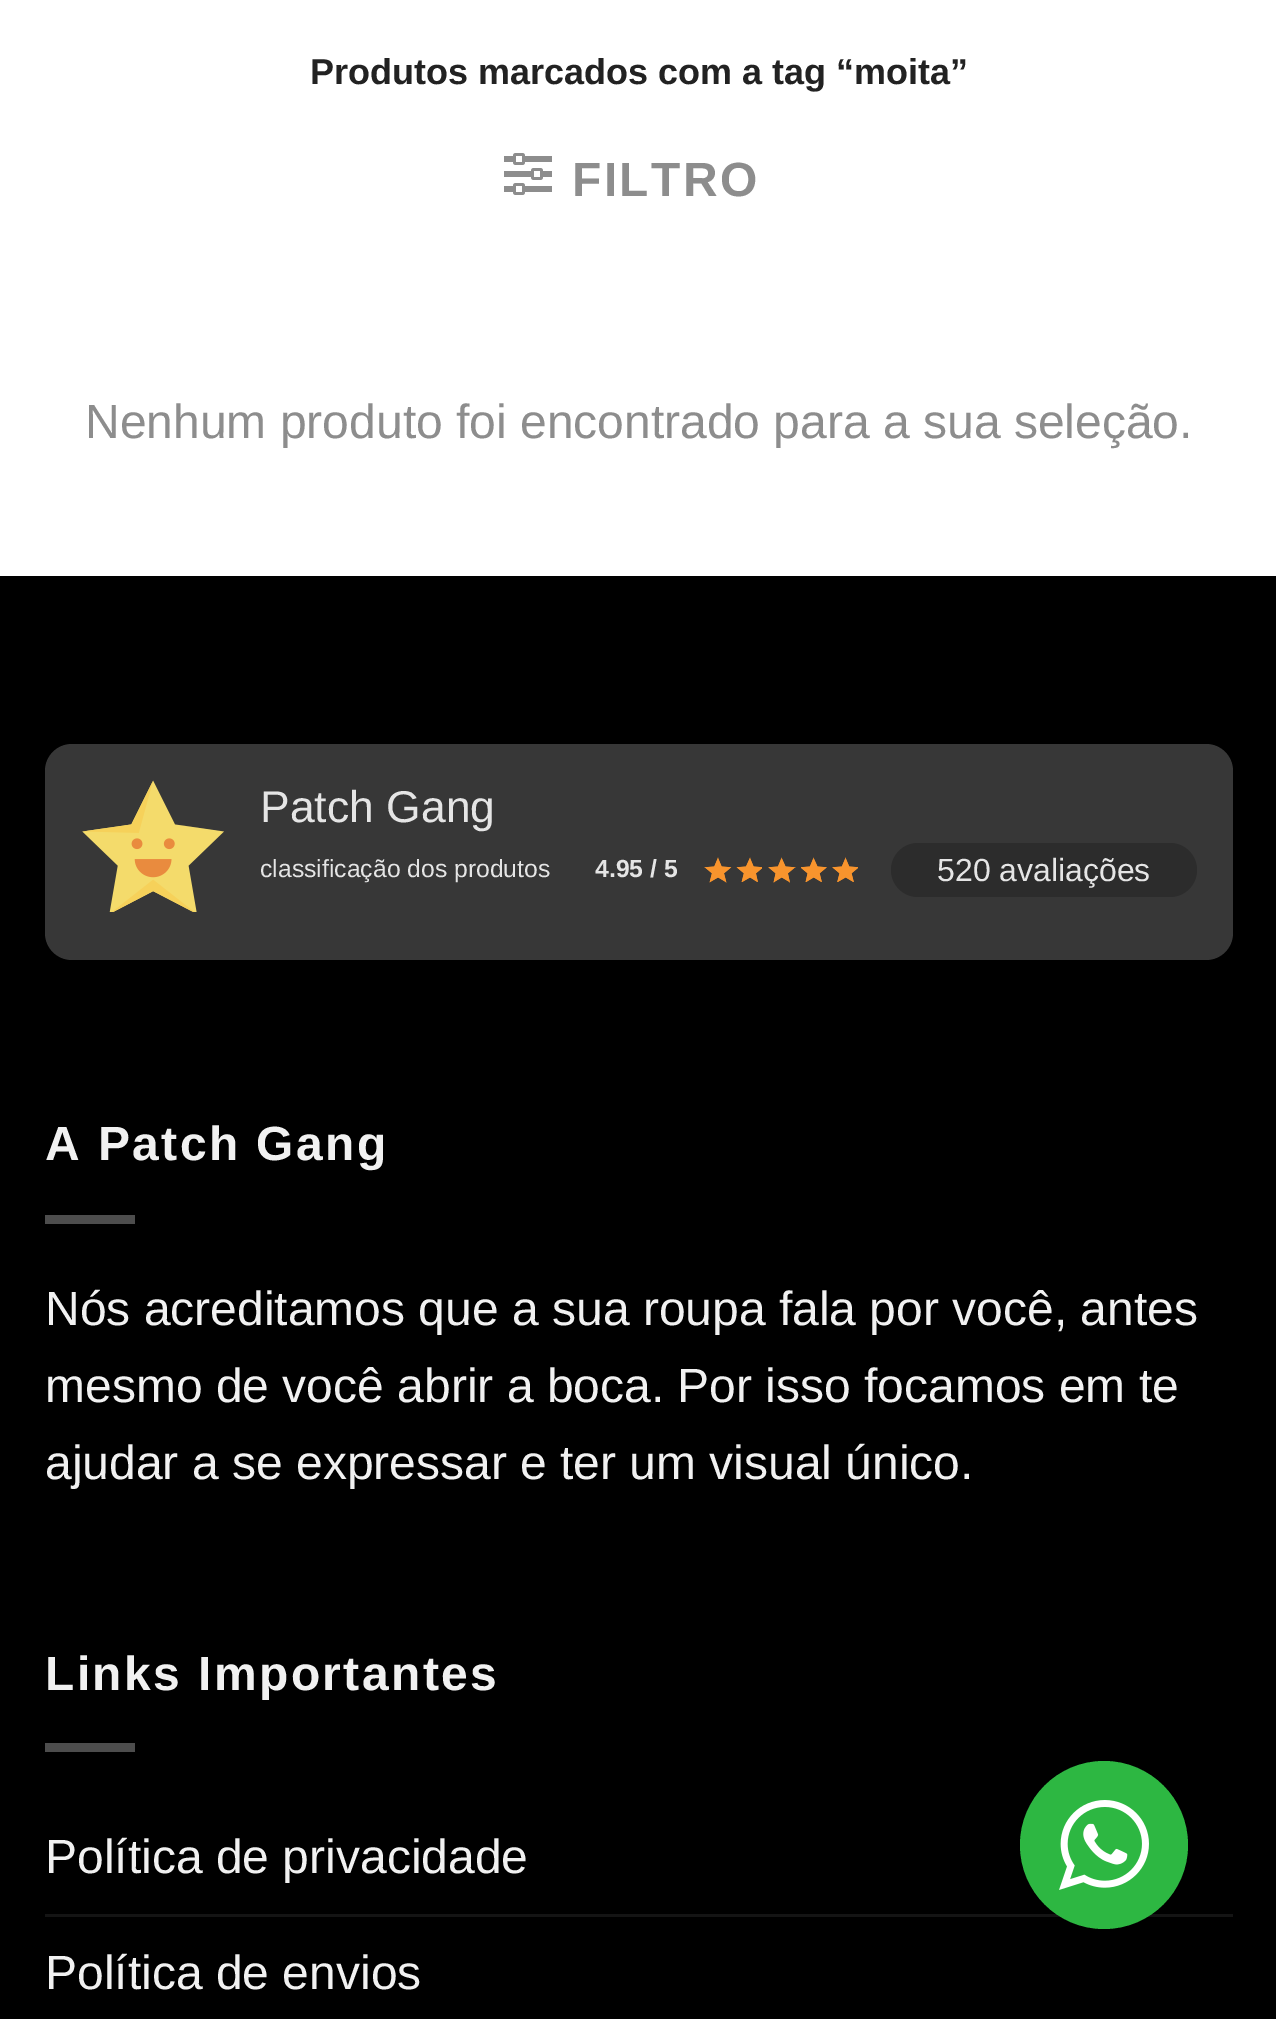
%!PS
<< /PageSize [1276 2019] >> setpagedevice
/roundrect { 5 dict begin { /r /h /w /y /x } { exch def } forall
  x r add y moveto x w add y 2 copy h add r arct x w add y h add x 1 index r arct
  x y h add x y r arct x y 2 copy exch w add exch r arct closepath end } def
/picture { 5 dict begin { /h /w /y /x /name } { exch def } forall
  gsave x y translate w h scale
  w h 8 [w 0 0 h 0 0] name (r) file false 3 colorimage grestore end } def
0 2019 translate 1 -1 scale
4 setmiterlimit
1 setgray
0 0 1276 2019 rectfill
/LiberationSans-Bold [36 0 0 -36 0 0] selectfont
0.133 setgray
310 84 moveto (Produtos marcados com a tag “moita”) show
(img1.rgb) 504 153 48 42 picture
/LiberationSans-Bold [48 0 0 -48 0 0] selectfont
0.553 setgray
572 196 moveto 2.4 0 (FILTRO) ashow
/LiberationSans-Regular [48 0 0 -48 0 0] selectfont
85 438 moveto (Nenhum produto foi encontrado para a sua seleção.) show
0 setgray
0 576 1276 1443 rectfill
0.216 setgray
45 744 1188 216 27 roundrect fill
(img2.rgb) 82 780 142 132 picture
/LiberationSans-Regular [44.5 0 0 -44.5 0 0] selectfont
0.898 setgray
260 822 moveto (Patch Gang) show
/LiberationSans-Regular [24.75 0 0 -24.75 0 0] selectfont
260 877 moveto (classificação dos produtos) show
/LiberationSans-Bold [24.75 0 0 -24.75 0 0] selectfont
595 877 moveto (4.95 / 5) show
0.973 0.58 0.176 setrgbcolor
1.8 setlinewidth
newpath 718.5 876.5 moveto 718 876.5 lineto 711 880.5 lineto 713 873 lineto 707 868 lineto 715 867.5 lineto 718 860 lineto 721 867.5 lineto 729 868 lineto 723 873 lineto 725 880.5 lineto closepath stroke
(img3.rgb) 705 858 27 24 picture
gsave
735 855 27 27 rectclip
newpath 750.5 876.5 moveto 750 876.5 lineto 743 880.5 lineto 745 873 lineto 739 868 lineto 746.5 867.5 lineto 750 860 lineto 753 867.5 lineto 761 868 lineto 755 873 lineto 756.5 880.5 lineto closepath stroke
grestore
(img4.rgb) 736 858 26 24 picture
newpath 782 876.5 moveto 781.5 876.5 lineto 775 880.5 lineto 776.5 873 lineto 770.5 868 lineto 778.5 867.5 lineto 781.5 860 lineto 785 867.5 lineto 793 868 lineto 787 873 lineto 788.5 880.5 lineto closepath stroke
(img5.rgb) 768 858 27 24 picture
gsave
801 855 27 27 rectclip
newpath 814 876.5 moveto 813.5 876.5 lineto 807 880.5 lineto 808.5 873 lineto 802.5 868 lineto 810.5 867.5 lineto 813.5 860 lineto 817 867.5 lineto 824.5 868 lineto 818.5 873 lineto 820.5 880.5 lineto closepath stroke
grestore
(img6.rgb) 801 858 26 24 picture
gsave
831 855 27 27 rectclip
newpath 846 876.5 moveto 845.5 876.5 lineto 838.5 880.5 lineto 840.5 873 lineto 834.5 868 lineto 842.5 867.5 lineto 845.5 860 lineto 848.5 867.5 lineto 856.5 868 lineto 850.5 873 lineto 852.5 880.5 lineto closepath stroke
grestore
(img7.rgb) 832 858 26 24 picture
0.173 setgray
891 843 306 54 27 roundrect fill
/LiberationSans-Regular [32 0 0 -32 0 0] selectfont
0.898 setgray
937 881 moveto (520 avaliações) show
/LiberationSans-Bold [48 0 0 -48 0 0] selectfont
0.945 setgray
45 1160 moveto 2.4 0 (A Patch Gang) ashow
0.302 setgray
45 1215 90 9 rectfill
/LiberationSans-Regular [48 0 0 -48 0 0] selectfont
0.945 setgray
45 1325 moveto (Nós acreditamos que a sua roupa fala por você, antes) show
45 1402 moveto (mesmo de você abrir a boca. Por isso focamos em te) show
45 1479 moveto (ajudar a se expressar e ter um visual único.) show
/LiberationSans-Bold [48 0 0 -48 0 0] selectfont
45 1690 moveto 2.4 0 (Links Importantes) ashow
0.302 setgray
45 1743 90 9 rectfill
/LiberationSans-Regular [48 0 0 -48 0 0] selectfont
0.945 setgray
45 1873 moveto (Política de privacidade) show
0.078 setgray
45 1914 1188 3 rectfill
0.945 setgray
45 1989 moveto (Política de envios) show
0.176 0.718 0.259 setrgbcolor
newpath 1104 1845 84 0 360 arc closepath fill
(img8.rgb) 1059 1800 90 90 picture
showpage
